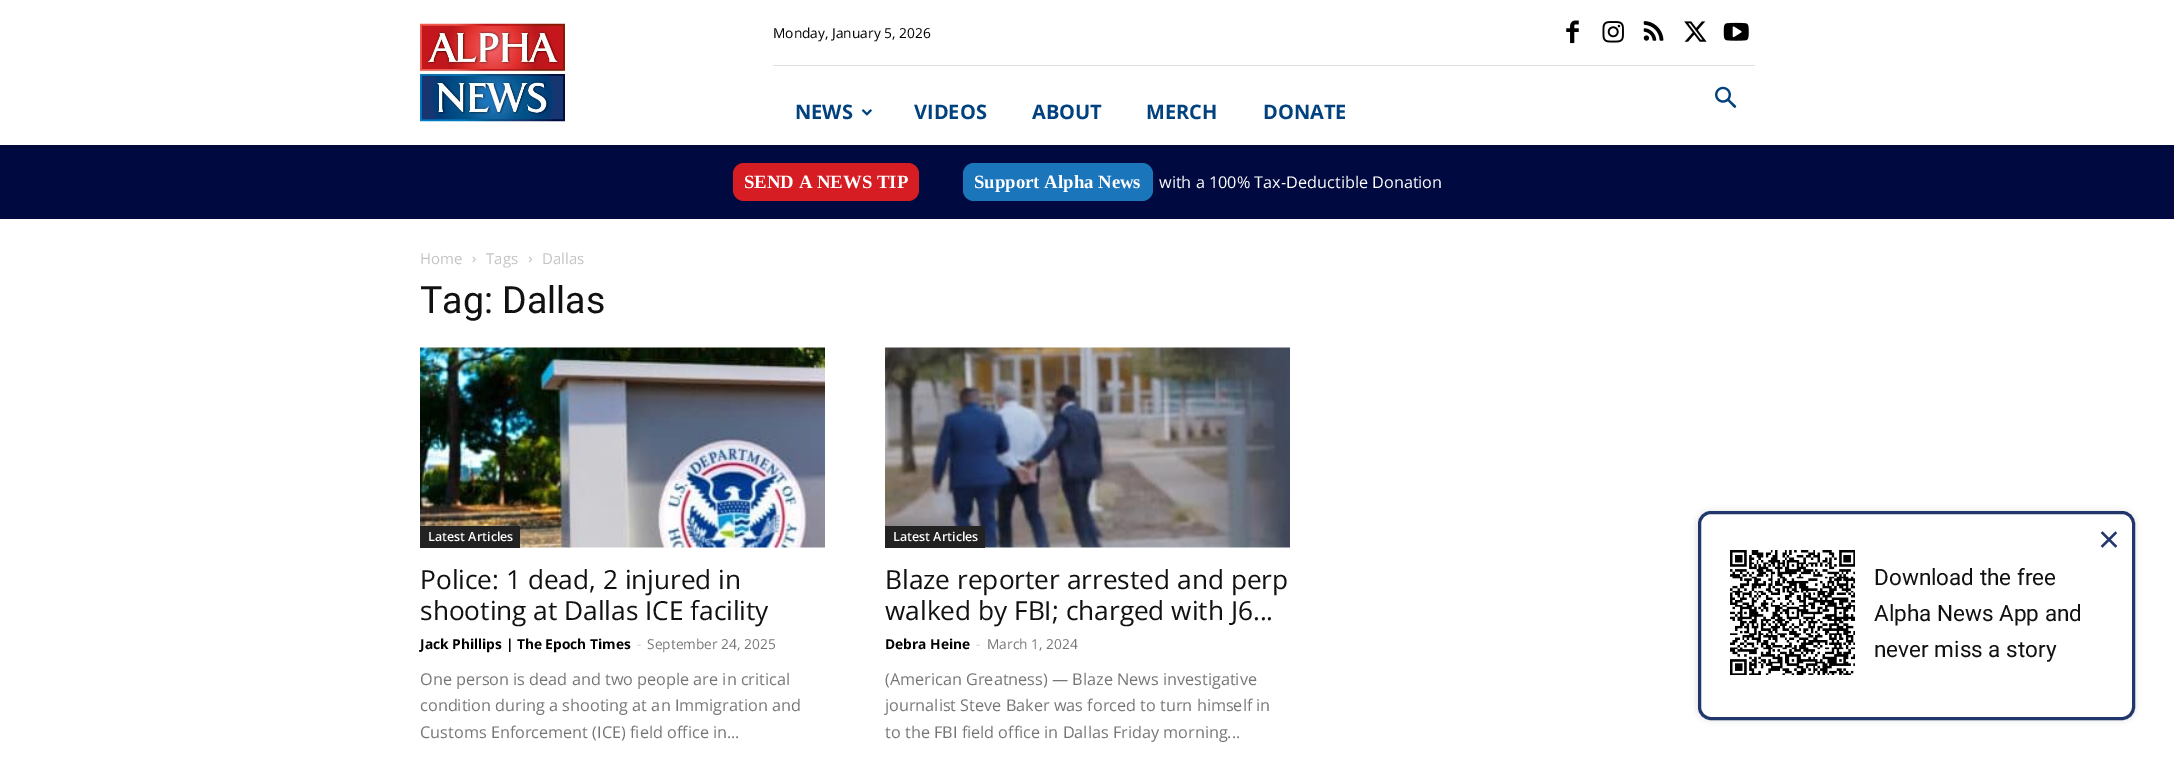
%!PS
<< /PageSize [2174 760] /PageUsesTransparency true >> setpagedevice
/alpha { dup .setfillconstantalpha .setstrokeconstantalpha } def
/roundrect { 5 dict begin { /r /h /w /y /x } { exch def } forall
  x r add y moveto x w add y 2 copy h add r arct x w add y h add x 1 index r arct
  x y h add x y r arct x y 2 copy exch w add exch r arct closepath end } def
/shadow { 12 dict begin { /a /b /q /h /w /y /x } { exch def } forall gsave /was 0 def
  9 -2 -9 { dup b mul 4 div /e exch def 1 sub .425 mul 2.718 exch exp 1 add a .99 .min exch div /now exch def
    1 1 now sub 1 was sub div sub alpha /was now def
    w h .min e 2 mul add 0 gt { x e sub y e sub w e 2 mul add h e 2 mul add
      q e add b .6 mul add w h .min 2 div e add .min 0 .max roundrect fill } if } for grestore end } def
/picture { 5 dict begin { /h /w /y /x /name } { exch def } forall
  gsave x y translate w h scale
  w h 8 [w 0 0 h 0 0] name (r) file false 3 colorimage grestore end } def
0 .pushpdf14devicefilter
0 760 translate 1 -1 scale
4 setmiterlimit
1 setgray
0 0 2174 760 rectfill
(img1.rgb) 420 23 145 99 picture
0.878 setgray
773 65 982 1 rectfill
/OpenSans-Regular [13.75 0 0 -13.75 0 0] selectfont
0 setgray
773 38 moveto (Monday, January 5, 2026) show
(img2.rgb) 1566 20 13 24 picture
(img3.rgb) 1602 21 22 22 picture
(img4.rgb) 1643 21 21 20 picture
(img5.rgb) 1684 21 23 21 picture
(img6.rgb) 1723 22 26 19 picture
(img7.rgb) 1715 86 22 22 picture
/OpenSans-Bold [20 0 0 -20 0 0] selectfont
0 0.255 0.494 setrgbcolor
795 119 moveto (NEWS) show
(img8.rgb) 861 109 11 7 picture
914 119 moveto (VIDEOS) show
1032 119 moveto (ABOUT) show
1146 119 moveto (MERCH) show
1263 119 moveto (DONATE) show
0 0.035 0.235 setrgbcolor
0 145 2174 4 rectfill
0 0.039 0.251 setrgbcolor
0 149 2174 70 rectfill
0.839 0.114 0.137 setrgbcolor
733 163 186 38 11 roundrect fill
/LiberationSerif-Bold [18.75 0 0 -18.75 0 0] selectfont
1 setgray
744 188 moveto (SEND A NEWS TIP) show
0.106 0.459 0.733 setrgbcolor
963 163 190 38 11 roundrect fill
1 setgray
974 188 moveto (Support Alpha News) show
/OpenSans-Regular [16.25 0 0 -16.25 0 0] selectfont
1159 188 moveto (with a 100% Tax-Deductible Donation) show
/OpenSans-Regular [15 0 0 -15 0 0] selectfont
0.765 setgray
420 264 moveto (Home) show
(img9.rgb) 472 256 4 7 picture
486 264 moveto (Tags) show
(img10.rgb) 528 256 4 7 picture
542 264 moveto (Dallas) show
/Roboto-Regular [37.5 0 0 -37.5 0 0] selectfont
0.067 setgray
420 313 moveto (Tag: Dallas) show
(img11.rgb) 420 347 405 201 picture
0.133 setgray
420 526 100 22 rectfill
/OpenSans-SemiBold [12.5 0 0 -12.5 0 0] selectfont
1 setgray
428 541 moveto (Latest Articles) show
/OpenSans-Regular [26.25 0 0 -26.25 0 0] selectfont
0.067 setgray
420 589 moveto (Police: 1 dead, 2 injured in) show
420 620 moveto (shooting at Dallas ICE facility) show
/OpenSans-Bold [13.75 0 0 -13.75 0 0] selectfont
0 setgray
420 649 moveto (Jack Phillips | The Epoch Times) show
/OpenSans-Regular [13.75 0 0 -13.75 0 0] selectfont
0.8 setgray
637 649 moveto (-) show
0.463 setgray
647 649 moveto (September 24, 2025) show
/OpenSans-Regular [16.25 0 0 -16.25 0 0] selectfont
420 685 moveto (One person is dead and two people are in critical) show
420 711 moveto (condition during a shooting at an Immigration and) show
420 738 moveto (Customs Enforcement \(ICE\) field office in...) show
(img12.rgb) 885 347 405 201 picture
0.133 setgray
885 526 100 22 rectfill
/OpenSans-SemiBold [12.5 0 0 -12.5 0 0] selectfont
1 setgray
893 541 moveto (Latest Articles) show
/OpenSans-Regular [26.25 0 0 -26.25 0 0] selectfont
0.067 setgray
885 589 moveto (Blaze reporter arrested and perp) show
885 620 moveto (walked by FBI; charged with J6...) show
/OpenSans-Bold [13.75 0 0 -13.75 0 0] selectfont
0 setgray
885 649 moveto (Debra Heine) show
/OpenSans-Regular [13.75 0 0 -13.75 0 0] selectfont
0.8 setgray
976 649 moveto (-) show
0.463 setgray
987 649 moveto (March 1, 2024) show
/OpenSans-Regular [16.25 0 0 -16.25 0 0] selectfont
885 685 moveto (\(American Greatness\) — Blaze News investigative) show
885 711 moveto (journalist Steve Baker was forced to turn himself in) show
885 738 moveto (to the FBI field office in Dallas Friday morning...) show
0 setgray
1696 510 440 211 14 2.5 0.08 shadow
1 setgray
1699.5 512.5 434 206 11.5 roundrect gsave fill grestore
0.129 0.216 0.42 setrgbcolor
3 setlinewidth
stroke
/LiberationSans-Regular [37.5 0 0 -37.5 0 0] selectfont
2098 552 moveto (×) show
(img13.rgb) 1730 550 125 125 picture
/Roboto-Regular [22.5 0 0 -22.5 0 0] selectfont
0.067 setgray
1874 585 moveto (Download the free) show
1874 621 moveto (Alpha News App and) show
1874 657 moveto (never miss a story) show
.poppdf14devicefilter showpage
